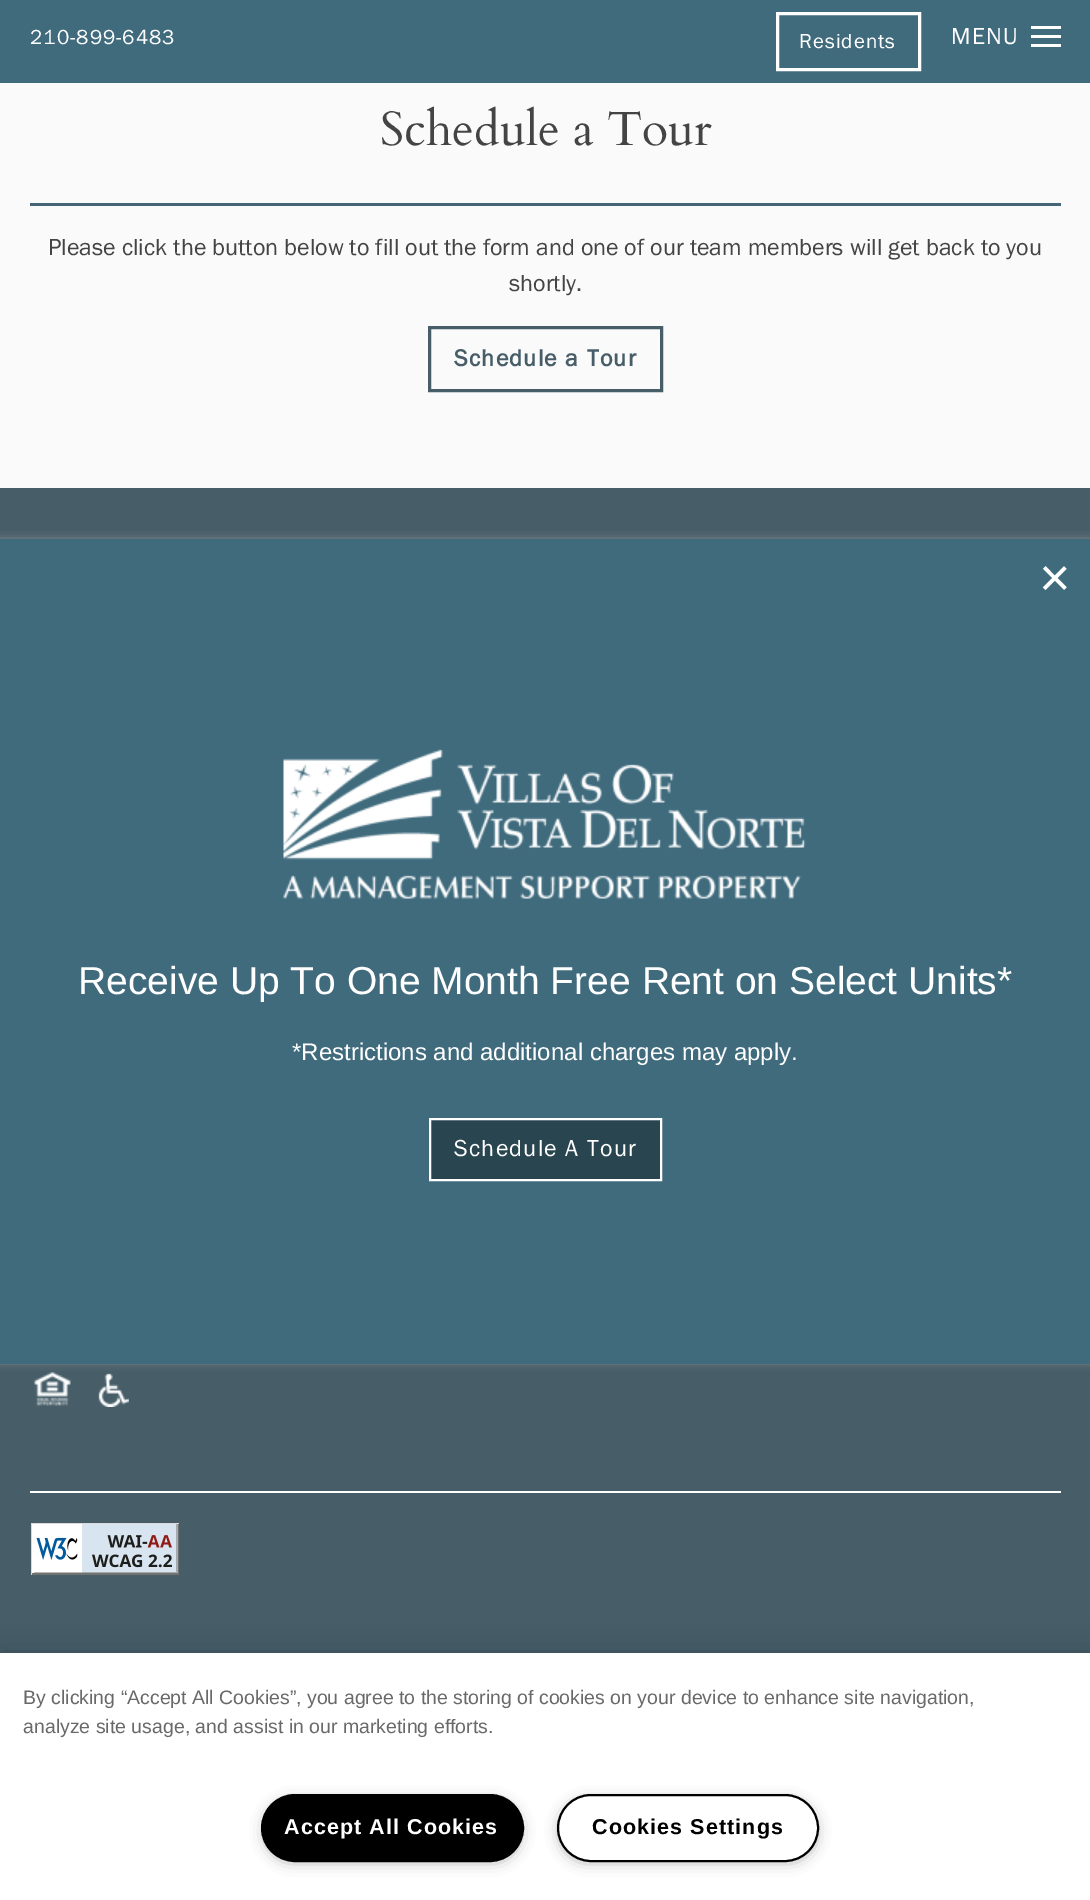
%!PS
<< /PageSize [1090 1900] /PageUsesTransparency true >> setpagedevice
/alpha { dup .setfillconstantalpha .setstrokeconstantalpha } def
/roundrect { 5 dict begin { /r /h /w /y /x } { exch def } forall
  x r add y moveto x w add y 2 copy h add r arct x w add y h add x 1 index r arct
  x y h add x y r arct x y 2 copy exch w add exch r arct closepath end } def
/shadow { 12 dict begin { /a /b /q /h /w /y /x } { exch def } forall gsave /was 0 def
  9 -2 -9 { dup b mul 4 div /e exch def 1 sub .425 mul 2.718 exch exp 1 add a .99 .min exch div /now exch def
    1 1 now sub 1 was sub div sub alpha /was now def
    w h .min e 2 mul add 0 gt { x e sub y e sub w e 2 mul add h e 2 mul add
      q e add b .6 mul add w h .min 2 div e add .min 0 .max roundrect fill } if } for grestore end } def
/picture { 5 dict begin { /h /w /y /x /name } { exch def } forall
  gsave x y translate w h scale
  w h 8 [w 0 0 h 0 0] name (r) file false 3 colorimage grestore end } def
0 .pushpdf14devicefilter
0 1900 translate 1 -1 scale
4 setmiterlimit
0.98 setgray
0 0 1090 1900 rectfill
0.247 0.42 0.49 setrgbcolor
0 0 1090 83 rectfill
/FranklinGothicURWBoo-Regular [21 0 0 -21 0 0] selectfont
1 setgray
30 44 moveto 1 0 (210-899-6483) ashow
3 setlinewidth
777.5 13.5 142 56 rectstroke
799 48 moveto 1 0 (Residents) ashow
/FranklinGothicURWBoo-Regular [24 0 0 -24 0 0] selectfont
951 44 moveto 1.25 0 (MENU) ashow
1031 26 30 3 rectfill
1031 35 30 3 rectfill
1031 44 30 3 rectfill
/Cardo-Regular [48 0 0 -48 0 0] selectfont
0.267 setgray
380 145 moveto (Schedule a Tour) show
0.271 0.396 0.467 setrgbcolor
30 203 1031 3 rectfill
/FranklinGothicURWBoo-Regular [24 0 0 -24 0 0] selectfont
0.267 setgray
48 255 moveto (Please click the button below to fill out the form and one of our team members will get back to you) show
509 291 moveto (shortly.) show
0.278 0.369 0.412 setrgbcolor
429.5 327.5 232 63 rectstroke
/FranklinGothicURWBoo-Bold [24 0 0 -24 0 0] selectfont
454 366 moveto 1.25 0 (Schedule a Tour) ashow
0 488 1090 1165 rectfill
(img1.rgb) 34 1372 37 34 picture
(img2.rgb) 98 1373 31 34 picture
1 setgray
30 1491 1031 2 rectfill
(img3.rgb) 31 1523 148 52 picture
0.6 setgray
-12 540 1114 822 0 4 1 shadow
0.247 0.42 0.49 setrgbcolor
0 539 1090 825 rectfill
/LiberationSans-Regular [54 0 0 -54 0 0] selectfont
1 setgray
1039 596 moveto (×) show
(img4.rgb) 283 749 523 150 picture
/LiberationSans-Regular [39 0 0 -39 0 0] selectfont
78 994 moveto (Receive Up To One Month Free Rent on Select Units*) show
/LiberationSans-Regular [24 0 0 -24 0 0] selectfont
292 1060 moveto (*Restrictions and additional charges may apply.) show
0.161 0.271 0.314 setrgbcolor
newpath 430 1119 moveto 661 1119 lineto 661 1180 lineto 430 1180 lineto closepath gsave fill grestore
1 setgray
2 setlinewidth
stroke
/FranklinGothicURWBoo-Regular [24 0 0 -24 0 0] selectfont
454 1156 moveto 1.25 0 (Schedule A Tour) ashow
0 setgray
0 1653 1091 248 0 13.5 0.2 shadow
1 setgray
0 1653 1090 247 rectfill
/LiberationSans-Regular [19.5 0 0 -19.5 0 0] selectfont
0.412 setgray
23 1704 moveto (By clicking “Accept All Cookies”, you agree to the storing of cookies on your device to enhance site navigation,) show
23 1733 moveto (analyze site usage, and assist in our marketing efforts.) show
0.6 setgray
266 1802 253 58 29 7.5 1 shadow
0 setgray
262 1795 261 66 33 roundrect gsave fill grestore
stroke
/LiberationSans-Bold [21.5 0 0 -21.5 0 0] selectfont
1 setgray
284 1834 moveto 1.1 0 (Accept All Cookies) ashow
0.6 setgray
561 1802 254 58 29 7.5 1 shadow
1 setgray
558 1795 260 66 33 roundrect gsave fill grestore
0 setgray
stroke
592 1834 moveto 1.1 0 (Cookies Settings) ashow
.poppdf14devicefilter showpage
